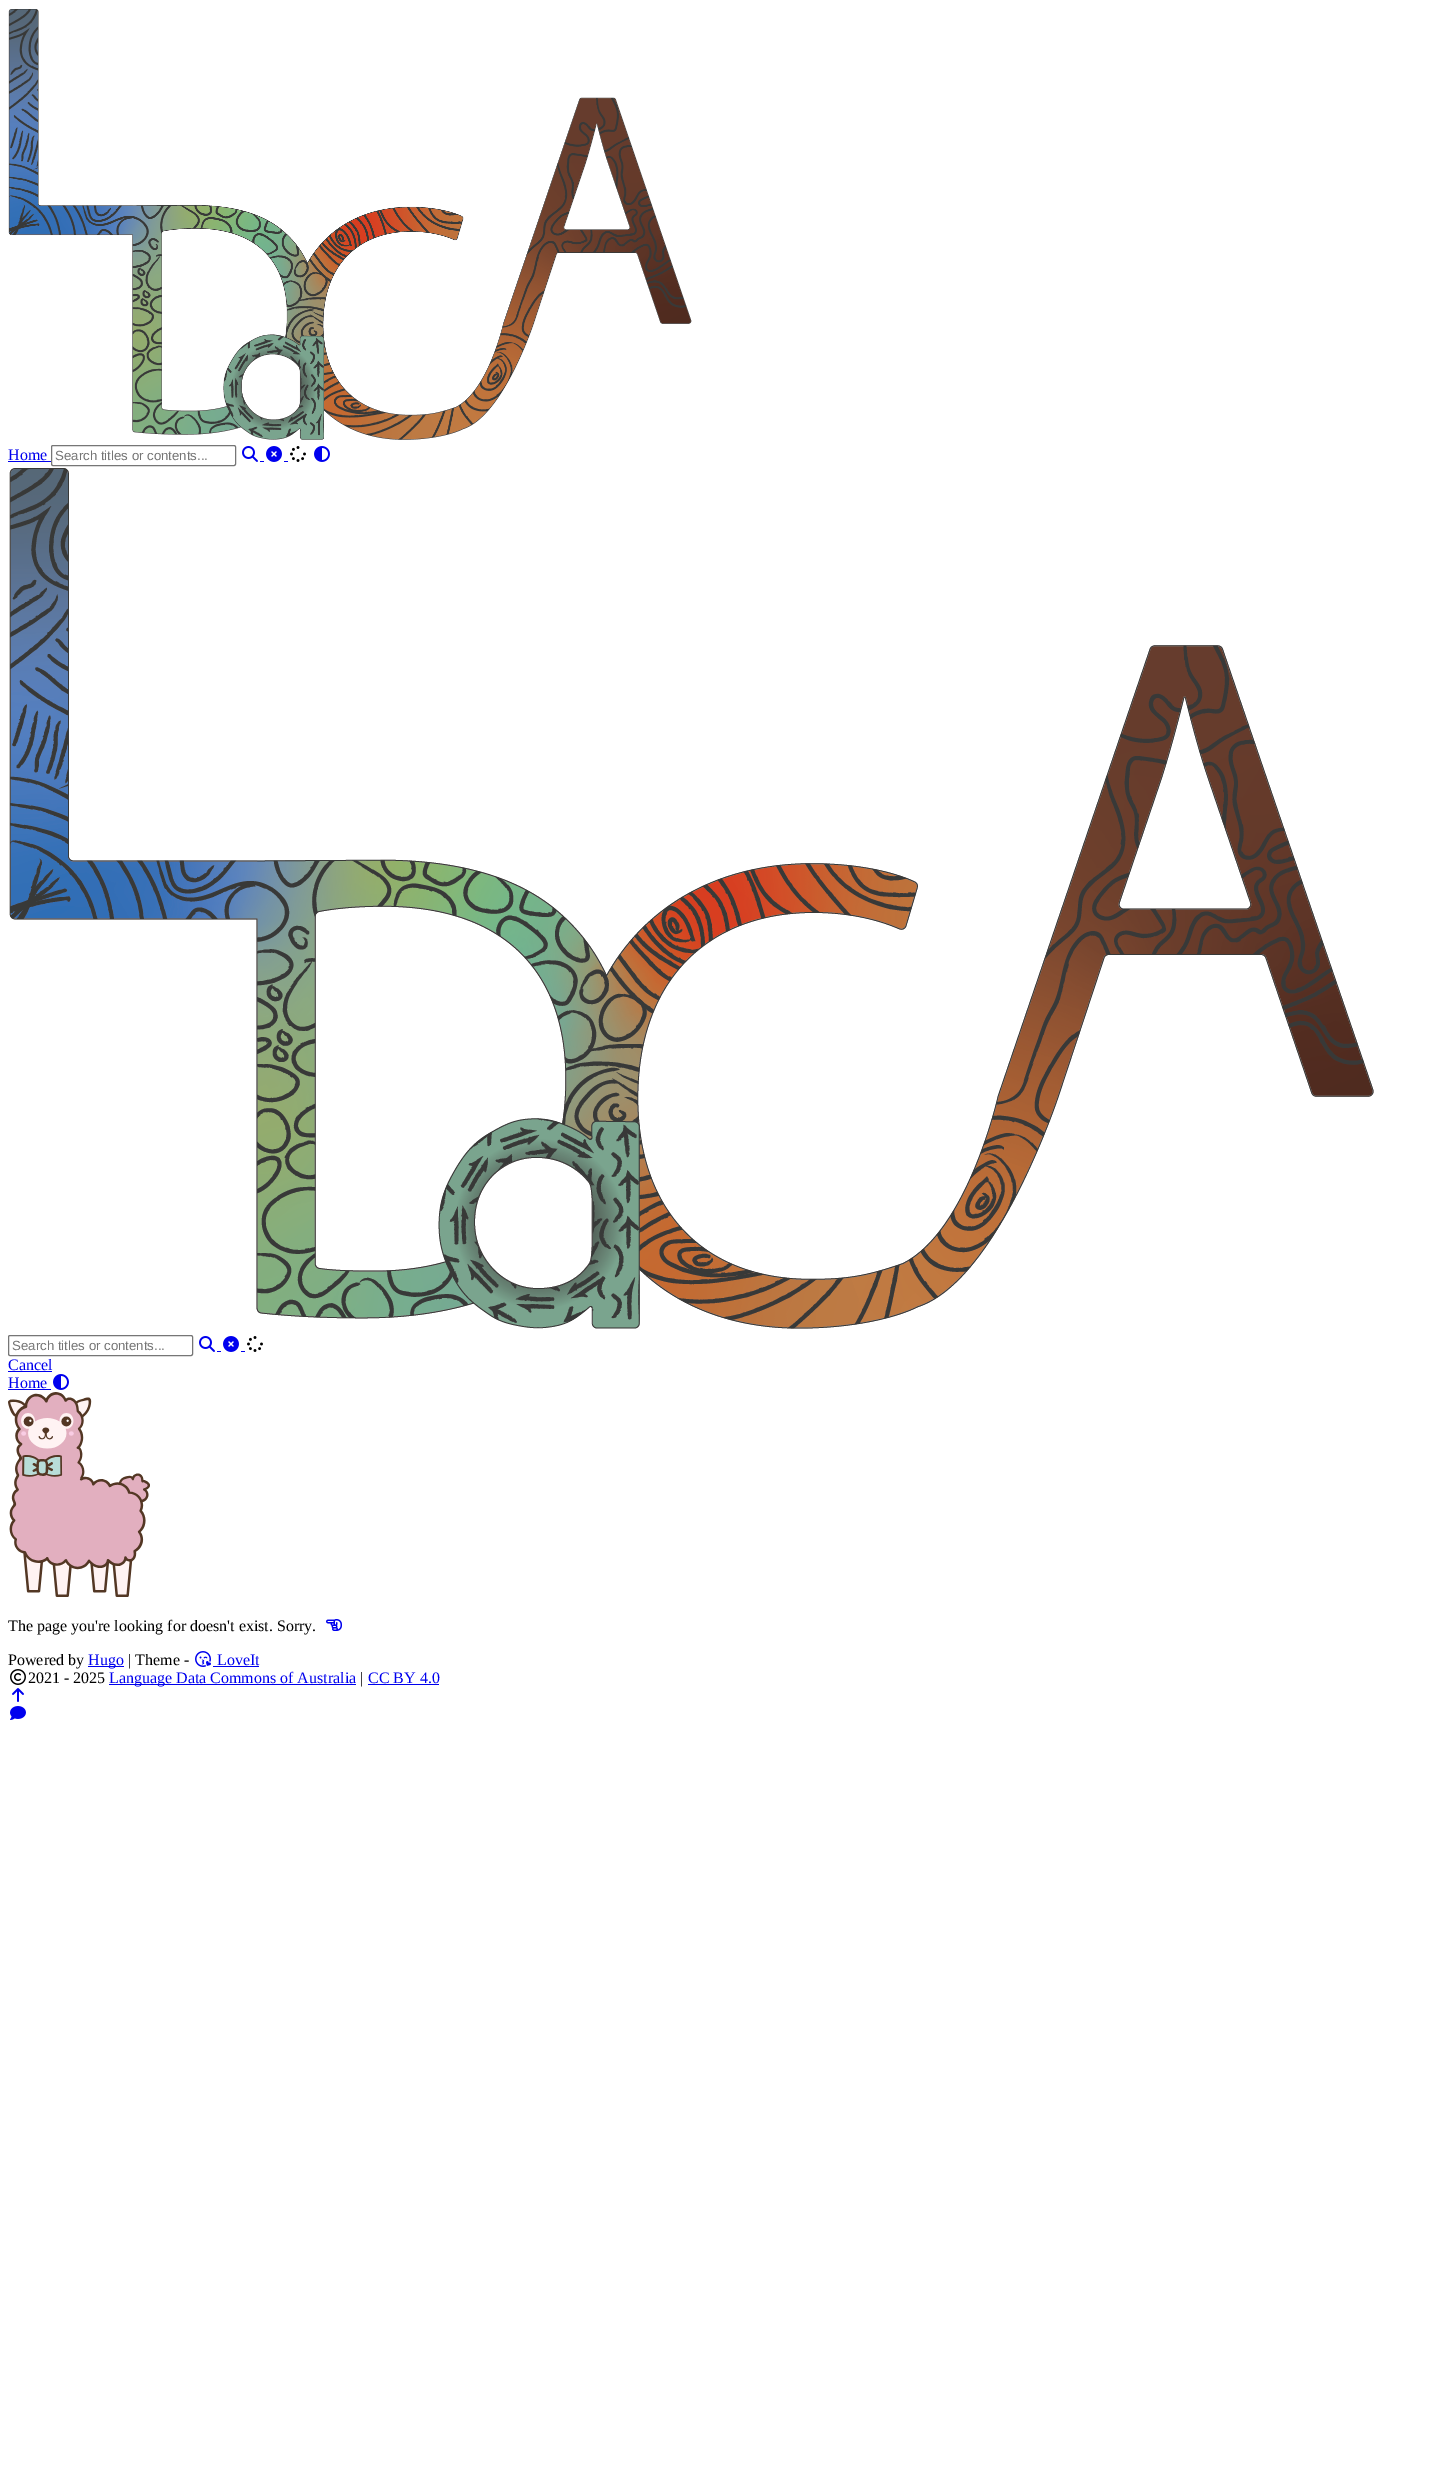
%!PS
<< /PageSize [1437 2466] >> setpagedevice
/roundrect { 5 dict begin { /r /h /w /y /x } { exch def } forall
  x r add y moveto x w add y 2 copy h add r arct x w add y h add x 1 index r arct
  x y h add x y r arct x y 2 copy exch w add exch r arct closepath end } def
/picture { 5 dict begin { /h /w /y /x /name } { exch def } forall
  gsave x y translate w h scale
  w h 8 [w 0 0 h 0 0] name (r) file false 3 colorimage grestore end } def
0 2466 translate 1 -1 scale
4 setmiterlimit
1 setgray
0 0 1437 2466 rectfill
(img1.rgb) 8 9 684 431 picture
/LiberationSerif-Regular [16 0 0 -16 0 0] selectfont
0 0 0.933 setrgbcolor
8 460 moveto (Home) show
8 461 43 1 rectfill
0.463 setgray
51.5 445.5 184 20 1.5 roundrect stroke
/LiberationSans-Regular [13.25 0 0 -13.25 0 0] selectfont
0.459 setgray
55 460 moveto (Search titles or contents...) show
(img2.rgb) 242 446 16 16 picture
0 0 0.933 setrgbcolor
260 461 4 1 rectfill
(img3.rgb) 266 446 16 16 picture
284 461 4 1 rectfill
(img4.rgb) 290 446 16 16 picture
(img5.rgb) 314 446 16 16 picture
(img6.rgb) 9 468 1365 861 picture
0.463 setgray
8.5 1335.5 184 20 1.5 roundrect stroke
0.459 setgray
12 1350 moveto (Search titles or contents...) show
(img2.rgb) 199 1336 16 16 picture
0 0 0.933 setrgbcolor
217 1351 4 1 rectfill
(img3.rgb) 223 1336 16 16 picture
241 1351 4 1 rectfill
(img4.rgb) 247 1336 16 16 picture
/LiberationSerif-Regular [16 0 0 -16 0 0] selectfont
8 1370 moveto (Cancel) show
8 1371 44 1 rectfill
8 1388 moveto (Home) show
8 1389 43 1 rectfill
(img5.rgb) 53 1374 16 16 picture
(img7.rgb) 8 1392 142 205 picture
0 setgray
8 1631 moveto (The page you're looking for doesn't exist. Sorry.) show
(img8.rgb) 326 1619 16 12 picture
8 1665 moveto (Powered by) show
0 0 0.933 setrgbcolor
88 1666 36 1 rectfill
88 1665 moveto (Hugo) show
0 setgray
128 1665 moveto (| Theme -) show
(img9.rgb) 195 1651 16 16 picture
0 0 0.933 setrgbcolor
217 1665 moveto (LoveIt) show
213 1666 46 1 rectfill
(img10.rgb) 10 1669 16 16 picture
0 setgray
28 1683 moveto (2021 - 2025) show
0 0 0.933 setrgbcolor
109 1684 247 1 rectfill
109 1683 moveto (Language Data Commons of Australia) show
0 setgray
360 1683 moveto (|) show
0 0 0.933 setrgbcolor
368 1683 moveto (CC BY 4.0) show
368 1684 71 1 rectfill
(img11.rgb) 12 1688 12 14 picture
(img12.rgb) 10 1706 16 14 picture
showpage
